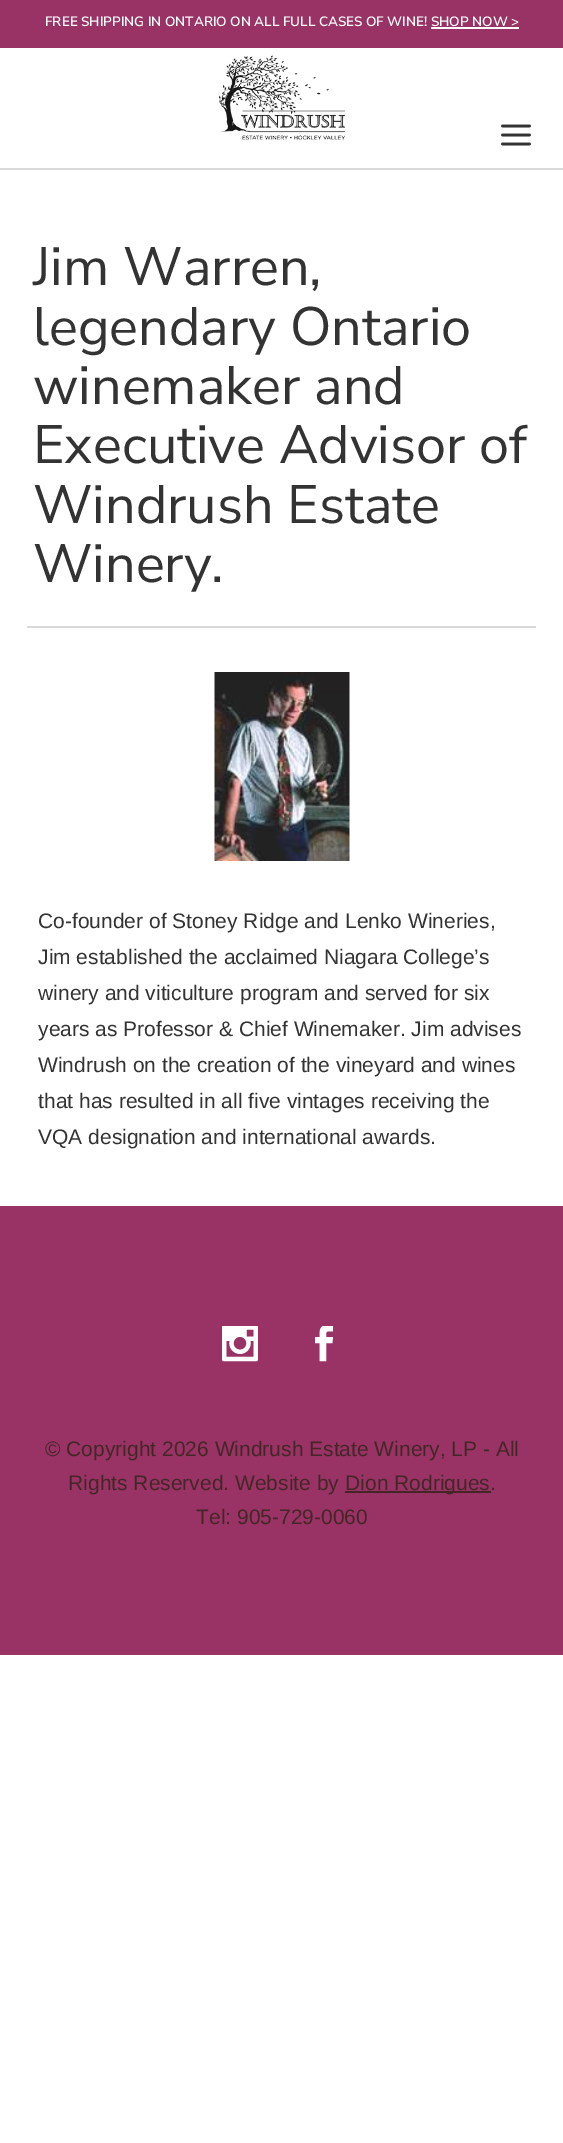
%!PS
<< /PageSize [563 2143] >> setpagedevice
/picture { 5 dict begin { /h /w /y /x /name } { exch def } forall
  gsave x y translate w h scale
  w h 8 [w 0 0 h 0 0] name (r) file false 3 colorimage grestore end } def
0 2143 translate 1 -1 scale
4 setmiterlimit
1 setgray
0 0 563 2143 rectfill
0.851 setgray
0 168 563 2 rectfill
0.6 0.2 0.4 setrgbcolor
0 0 563 48 rectfill
/NunitoSans-SemiBold [13.5 0 0 -13.5 0 0] selectfont
1 setgray
45 26 moveto (FREE SHIPPING IN ONTARIO ON ALL FULL CASES OF WINE! SHOP NOW >) show
431 27 88 2 rectfill
(img1.rgb) 219 55 126 85 picture
(img2.rgb) 501 124 30 22 picture
0.851 setgray
27 626 509 2 rectfill
/NunitoSans-Regular [54 0 0 -54 0 0] selectfont
0.2 setgray
33 285 moveto (Jim Warren,) show
33 345 moveto (legendary Ontario) show
33 404 moveto (winemaker and) show
33 463 moveto (Executive Advisor of) show
33 523 moveto (Windrush Estate) show
33 582 moveto (Winery.) show
(img3.rgb) 214 672 136 189 picture
/LiberationSans-Regular [21 0 0 -21 0 0] selectfont
38 928 moveto (Co-founder of Stoney Ridge and Lenko Wineries,) show
38 964 moveto (Jim established the acclaimed Niagara College’s) show
38 1000 moveto (winery and viticulture program and served for six) show
38 1036 moveto (years as Professor & Chief Winemaker. Jim advises) show
38 1072 moveto (Windrush on the creation of the vineyard and wines) show
38 1108 moveto (that has resulted in all five vintages receiving the) show
38 1144 moveto (VQA designation and international awards.) show
0.6 0.2 0.4 setrgbcolor
0 1206 563 449 rectfill
(img4.rgb) 222 1326 36 36 picture
(img5.rgb) 315 1326 19 36 picture
0.271 0.149 0.149 setrgbcolor
45 1456 moveto (© Copyright 2026 Windrush Estate Winery, LP - All) show
68 1490 moveto (Rights Reserved. Website by) show
345 1491 146 2 rectfill
345 1490 moveto (Dion Rodrigues.) show
196 1524 moveto (Tel: 905-729-0060) show
showpage
